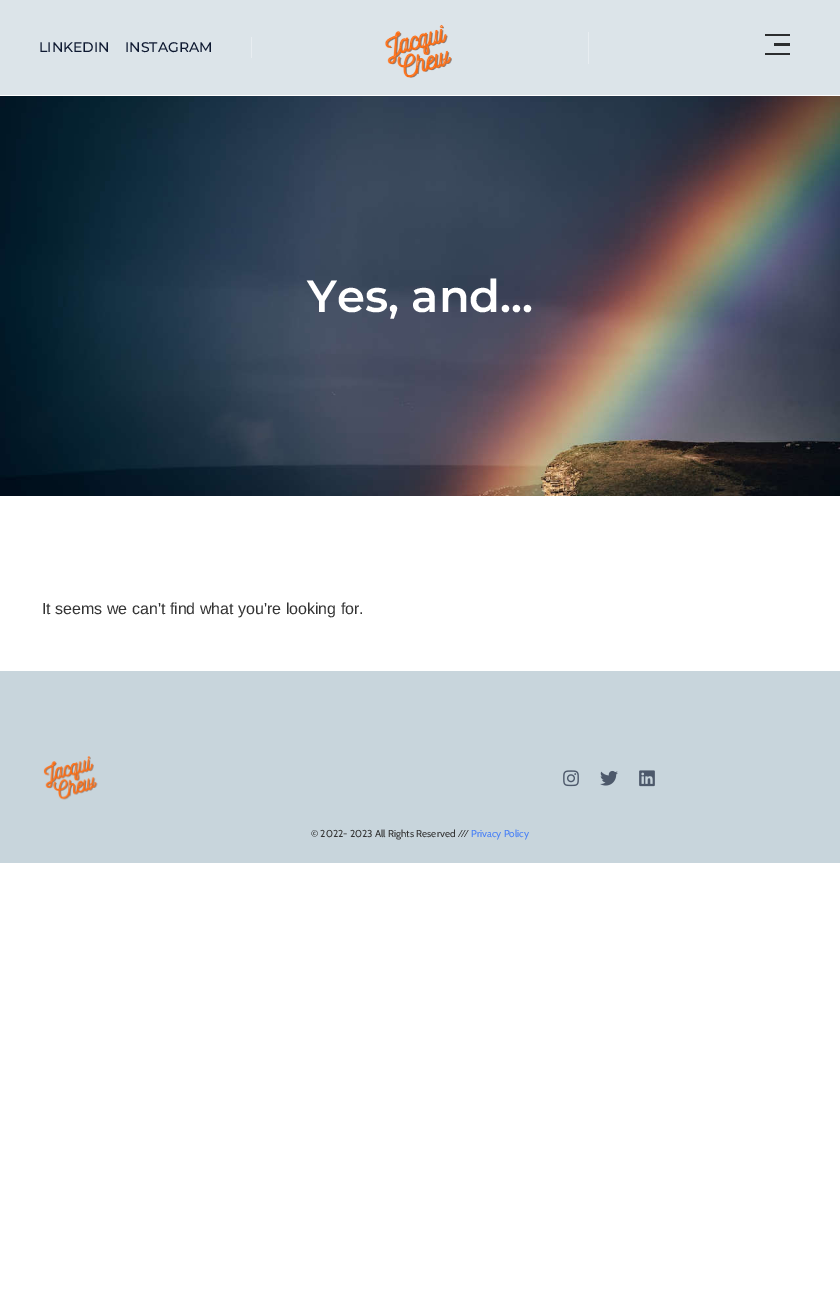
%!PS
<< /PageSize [840 1314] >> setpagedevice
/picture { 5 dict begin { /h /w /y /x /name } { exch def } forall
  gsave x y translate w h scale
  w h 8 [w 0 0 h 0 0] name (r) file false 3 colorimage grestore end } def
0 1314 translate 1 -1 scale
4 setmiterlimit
1 setgray
0 0 840 1314 rectfill
0.863 0.894 0.914 setrgbcolor
0 0 840 95 rectfill
0.91 0.929 0.945 setrgbcolor
251 37 1 21 rectfill
/Montserrat-Medium [14 0 0 -14 0 0] selectfont
0.055 0.098 0.192 setrgbcolor
39 52 moveto (LINKEDIN) show
125 52 moveto (INSTAGRAM) show
(img1.rgb) 385 25 67 53 picture
0.91 0.929 0.945 setrgbcolor
588 32 1 32 rectfill
0.173 0.18 0.184 setrgbcolor
765 34 25 2 rectfill
765 53 25 2 rectfill
774 43 16 3 rectfill
(img2.rgb) 0 96 840 400 picture
/Montserrat-SemiBold [45 0 0 -45 0 0] selectfont
1 setgray
307 312 moveto (Yes, and...) show
/LiberationSans-Regular [16 0 0 -16 0 0] selectfont
0.2 setgray
42 614 moveto (It seems we can't find what you're looking for.) show
0.784 0.835 0.863 setrgbcolor
0 671 840 192 rectfill
(img3.rgb) 43 756 55 44 picture
(img4.rgb) 563 770 16 17 picture
(img5.rgb) 600 770 18 16 picture
(img6.rgb) 639 770 16 17 picture
/Cabin-Regular [10 0 0 -10 0 0] selectfont
0.2 setgray
311 837 moveto (© 2022- 2023 All Rights Reserved  ⁄ ⁄ ⁄) show
0.275 0.498 0.969 setrgbcolor
471 837 moveto (Privacy Policy) show
showpage
